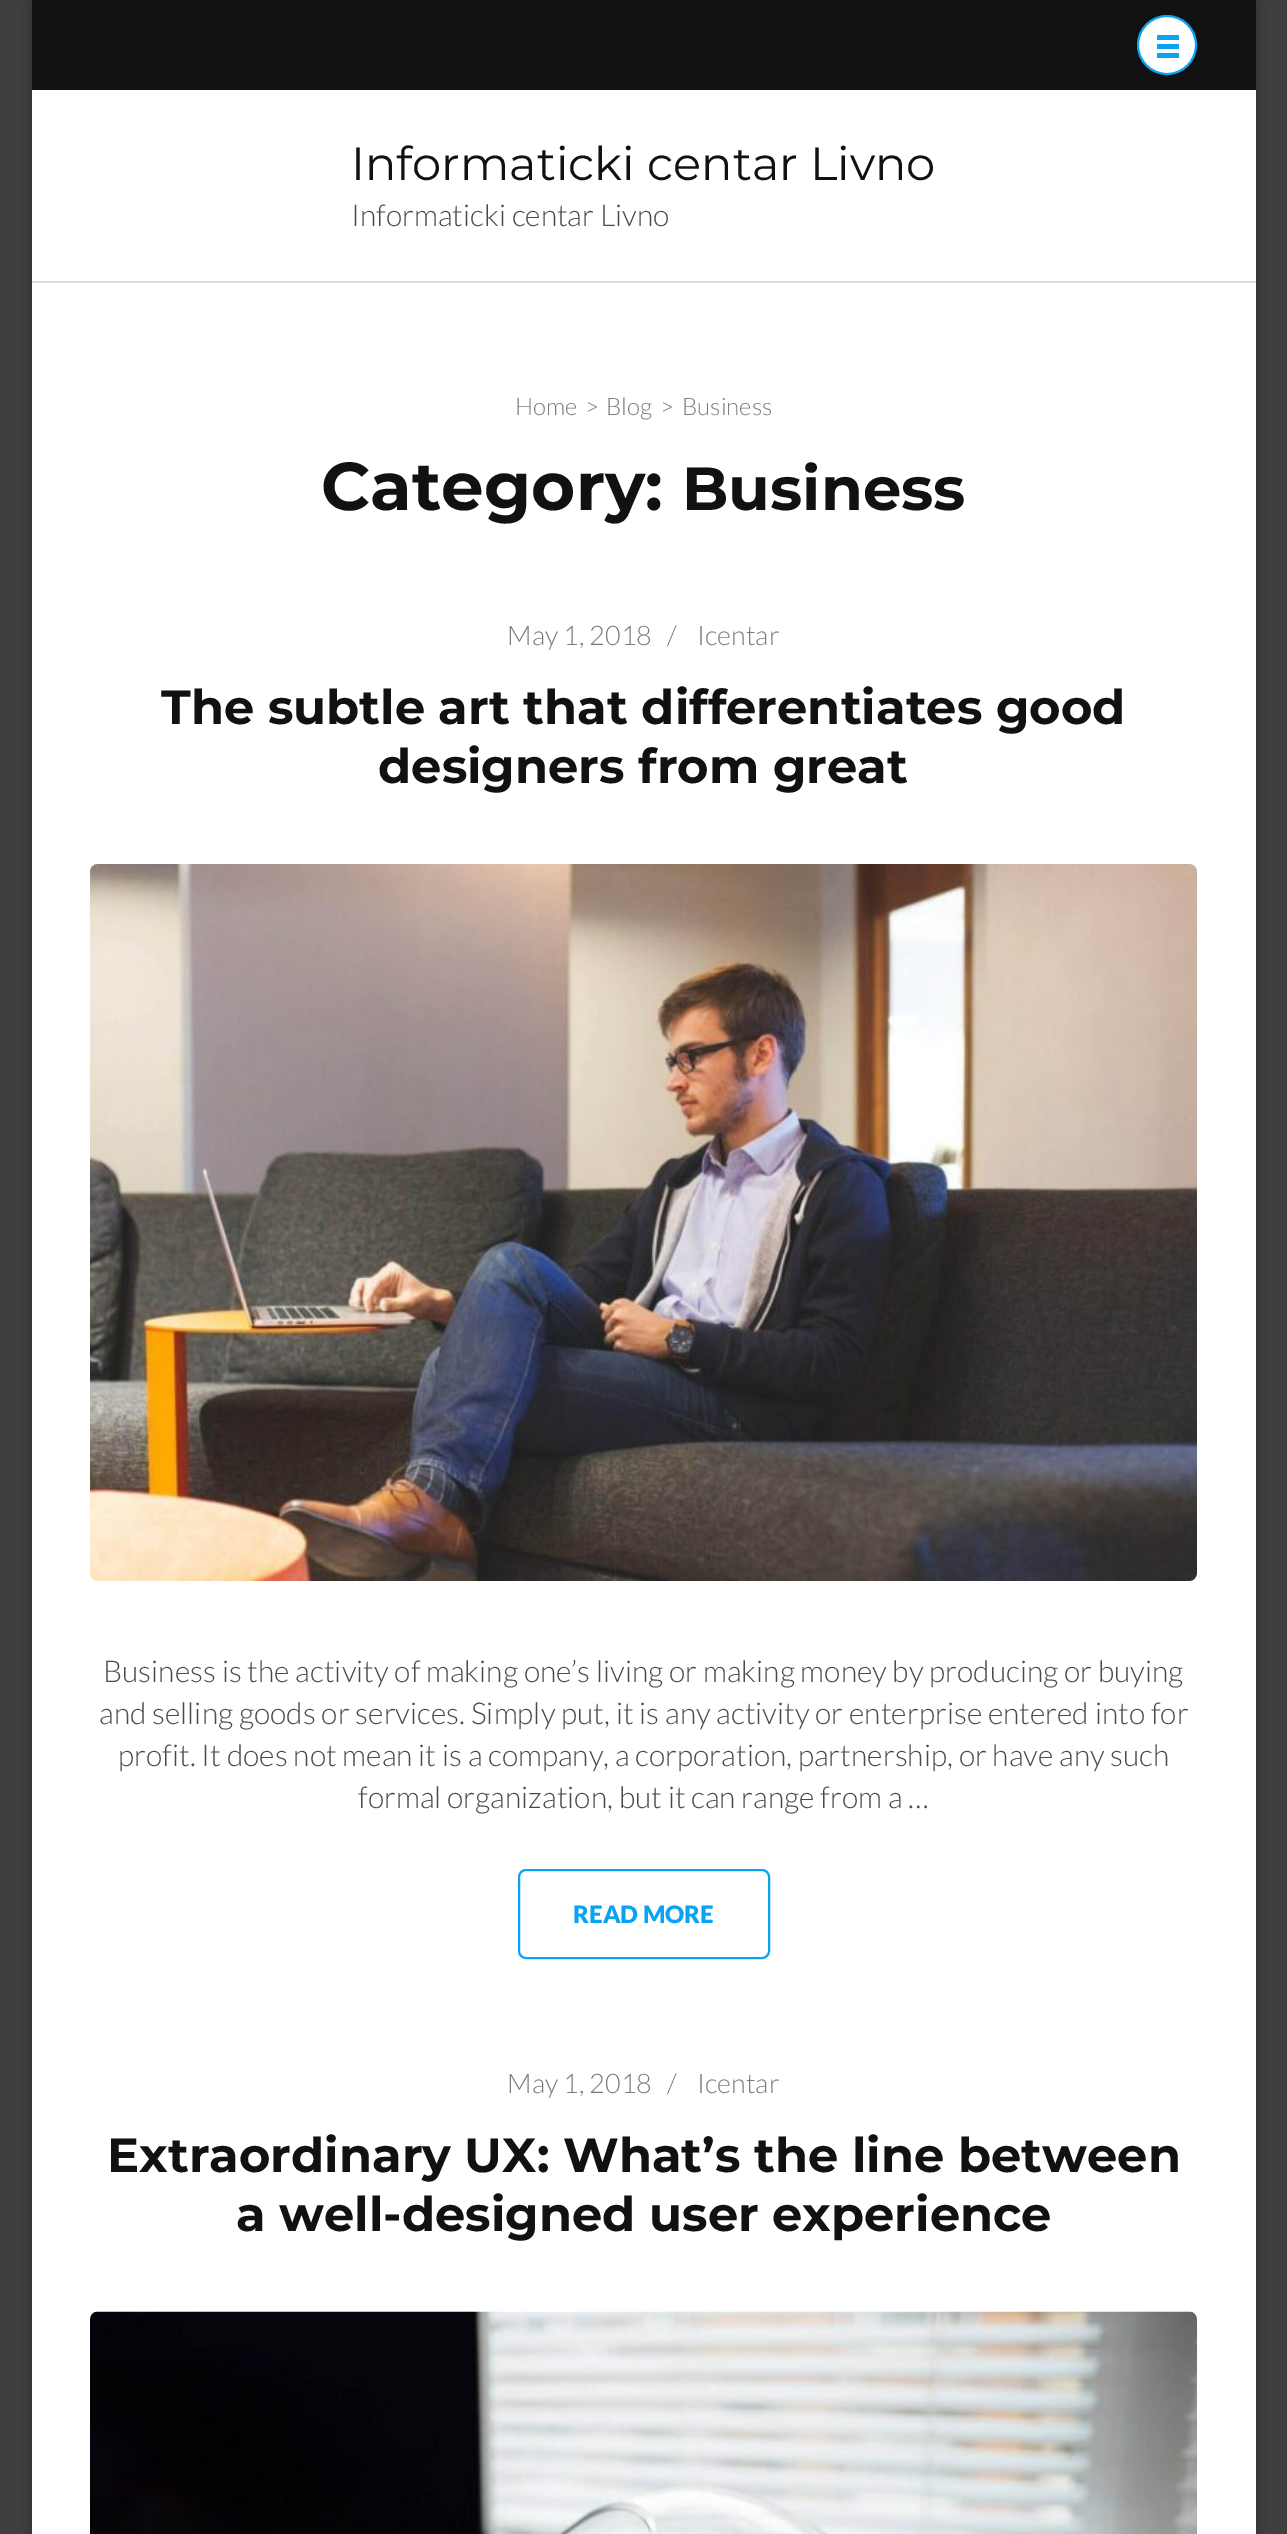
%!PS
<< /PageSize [1287 2534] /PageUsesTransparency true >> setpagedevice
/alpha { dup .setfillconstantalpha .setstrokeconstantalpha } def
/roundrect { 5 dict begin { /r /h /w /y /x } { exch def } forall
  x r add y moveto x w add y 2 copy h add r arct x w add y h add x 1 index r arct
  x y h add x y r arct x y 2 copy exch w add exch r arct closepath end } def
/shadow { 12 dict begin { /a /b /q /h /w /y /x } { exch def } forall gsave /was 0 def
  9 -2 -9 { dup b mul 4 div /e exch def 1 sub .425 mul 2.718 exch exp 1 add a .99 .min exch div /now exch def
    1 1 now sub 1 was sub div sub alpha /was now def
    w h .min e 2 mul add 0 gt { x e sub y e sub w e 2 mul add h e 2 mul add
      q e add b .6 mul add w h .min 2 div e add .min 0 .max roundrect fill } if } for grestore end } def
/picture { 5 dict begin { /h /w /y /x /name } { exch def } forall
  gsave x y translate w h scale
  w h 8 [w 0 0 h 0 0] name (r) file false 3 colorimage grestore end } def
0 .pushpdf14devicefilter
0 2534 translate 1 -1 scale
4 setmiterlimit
0.247 setgray
0 0 1287 2534 rectfill
0 setgray
32 0 1224 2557 0 7.5 0.3 shadow
1 setgray
32 90 1224 2444 rectfill
0.067 setgray
32 0 1224 90 rectfill
1 setgray
newpath 1167 45 29 0 360 arc closepath gsave fill grestore
0.039 0.639 0.953 setrgbcolor
2 setlinewidth
stroke
1157 35 22 5 rectfill
1157 44 22 5 rectfill
1157 53 22 5 rectfill
0.859 setgray
32 281 1224 2 rectfill
/Montserrat-Regular [46.5 0 0 -46.5 0 0] selectfont
0.067 setgray
351 180 moveto (Informaticki centar Livno) show
/Lato-Light [30 0 0 -30 0 0] selectfont
0.29 setgray
351 226 moveto (Informaticki centar Livno) show
/Lato-Light [24 0 0 -24 0 0] selectfont
0.482 setgray
515 415 moveto (Home) show
585 415 moveto (>) show
606 415 moveto (Blog) show
660 415 moveto (>) show
682 415 moveto (Business) show
/Montserrat-Bold [67.5 0 0 -67.5 0 0] selectfont
0.067 setgray
321 510 moveto (Category:) show
/Montserrat-Bold [60.75 0 0 -60.75 0 0] selectfont
682 510 moveto (Business) show
/Lato-Light [27 0 0 -27 0 0] selectfont
0.482 setgray
507 645 moveto (May 1, 2018) show
667 645 moveto (/) show
697 645 moveto (Icentar) show
/Montserrat-Bold [48 0 0 -48 0 0] selectfont
0.067 setgray
161 724 moveto (The subtle art that differentiates good) show
378 783 moveto (designers from great) show
(img1.rgb) 90 864 1107 717 picture
/Lato-Light [30 0 0 -30 0 0] selectfont
0.29 setgray
103 1682 moveto (Business is the activity of making one’s living or making money by producing or buying) show
99 1724 moveto (and selling goods or services. Simply put, it is any activity or enterprise entered into for) show
118 1766 moveto (profit. It does not mean it is a company, a corporation, partnership, or have any such) show
358 1808 moveto (formal organization, but it can range from a …) show
0.039 0.639 0.953 setrgbcolor
519 1870 250 88 7 roundrect stroke
/Lato-Black [24 0 0 -24 0 0] selectfont
573 1923 moveto (READ MORE) show
/Lato-Light [27 0 0 -27 0 0] selectfont
0.482 setgray
507 2093 moveto (May 1, 2018) show
667 2093 moveto (/) show
697 2093 moveto (Icentar) show
/Montserrat-Bold [48 0 0 -48 0 0] selectfont
0.067 setgray
107 2172 moveto (Extraordinary UX: What’s the line between) show
236 2231 moveto (a well-designed user experience) show
(img2.rgb) 90 2311 1107 223 picture
.poppdf14devicefilter showpage
